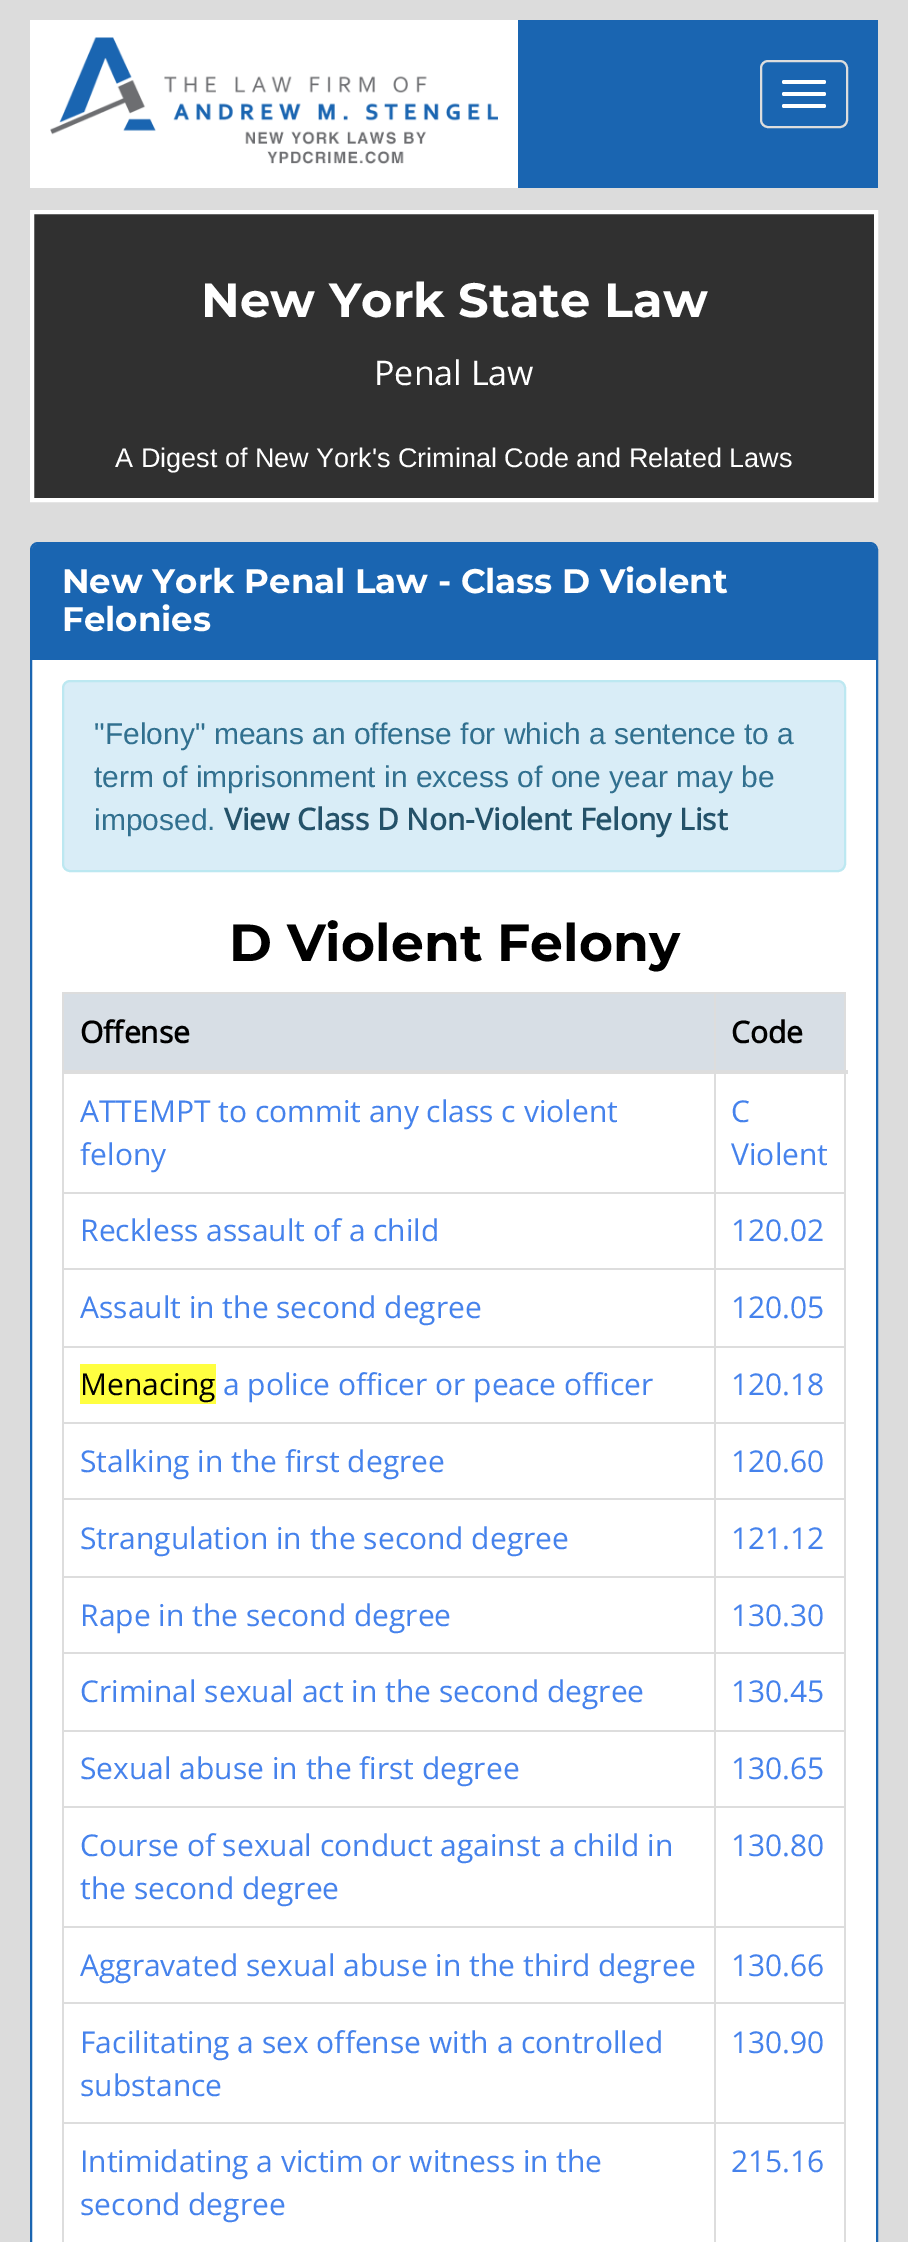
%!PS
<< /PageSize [908 2242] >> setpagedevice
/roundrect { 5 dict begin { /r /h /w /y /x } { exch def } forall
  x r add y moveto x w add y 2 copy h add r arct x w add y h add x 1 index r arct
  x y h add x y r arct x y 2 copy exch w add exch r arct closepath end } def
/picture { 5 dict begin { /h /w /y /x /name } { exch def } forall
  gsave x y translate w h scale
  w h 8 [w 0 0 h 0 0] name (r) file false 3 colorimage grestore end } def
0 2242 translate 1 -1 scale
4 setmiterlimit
0.863 setgray
0 0 908 2242 rectfill
0.102 0.396 0.694 setrgbcolor
518 20 360 168 rectfill
1 setgray
30 20 488 168 rectfill
(img1.rgb) 50 37 448 127 picture
0.867 setgray
2 setlinewidth
761 61 86 66 7 roundrect stroke
1 setgray
782 80 44 4 2 roundrect fill
782 92 44 4 2 roundrect fill
782 104 44 4 2 roundrect fill
0.188 setgray
newpath 32 212 moveto 876 212 lineto 876 500 lineto 32 500 lineto closepath gsave fill grestore
1 setgray
4 setlinewidth
stroke
/Montserrat-Thin [48 0 0 -48 0 0] selectfont
201 317 moveto (New York State Law) show
/OpenSans-Regular [34 0 0 -34 0 0] selectfont
374 385 moveto (Penal Law) show
/LiberationSans-Regular [27 0 0 -27 0 0] selectfont
115 467 moveto (A Digest of New York's Criminal Code and Related Laws) show
31 543 846 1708 7 roundrect gsave fill grestore
0.102 0.396 0.694 setrgbcolor
2 setlinewidth
stroke
newpath 38 544 moveto 870 544 lineto 873.5 544 876 546.5 876 550 curveto 876 660 lineto 32 660 lineto 32 550 lineto 32 546.5 34.5 544 38 544 curveto closepath fill
/Montserrat-Thin [34 0 0 -34 0 0] selectfont
1 setgray
62 593 moveto (New York Penal Law - Class D Violent) show
62 631 moveto (Felonies) show
0.851 0.929 0.969 setrgbcolor
63 681 782 190 7 roundrect gsave fill grestore
0.737 0.91 0.945 setrgbcolor
stroke
/LiberationSans-Regular [30 0 0 -30 0 0] selectfont
0.192 0.439 0.561 setrgbcolor
94 744 moveto ("Felony" means an offense for which a sentence to a) show
94 787 moveto (term of imprisonment in excess of one year may be) show
94 830 moveto (imposed.) show
/OpenSans-Bold [30 0 0 -30 0 0] selectfont
0.141 0.322 0.412 setrgbcolor
224 830 moveto (View Class D Non-Violent Felony List) show
/Montserrat-Thin [52 0 0 -52 0 0] selectfont
0 setgray
229 961 moveto (D Violent Felony) show
0.867 setgray
62 992 784 2 rectfill
844 992 2 1250 rectfill
62 992 2 1250 rectfill
0.843 0.871 0.898 setrgbcolor
64 994 650 76 rectfill
/OpenSans-Bold [30 0 0 -30 0 0] selectfont
0 setgray
80 1043 moveto (Offense) show
0.843 0.871 0.898 setrgbcolor
716 994 128 76 rectfill
0.867 setgray
714 1192 132 2 rectfill
714 1268 132 2 rectfill
714 1346 132 2 rectfill
714 1422 132 2 rectfill
714 1498 132 2 rectfill
714 1576 132 2 rectfill
714 1652 132 2 rectfill
714 1730 132 2 rectfill
714 1806 132 2 rectfill
714 1926 132 2 rectfill
714 2002 132 2 rectfill
714 2122 132 2 rectfill
714 2122 2 120 rectfill
62 2122 654 2 rectfill
714 2002 2 122 rectfill
62 2002 654 2 rectfill
714 1926 2 78 rectfill
62 1926 654 2 rectfill
714 1806 2 122 rectfill
62 1806 654 2 rectfill
714 1730 2 78 rectfill
62 1730 654 2 rectfill
714 1652 2 80 rectfill
62 1652 654 2 rectfill
714 1576 2 78 rectfill
62 1576 654 2 rectfill
714 1498 2 80 rectfill
62 1498 654 2 rectfill
714 1422 2 78 rectfill
62 1422 654 2 rectfill
714 1346 2 78 rectfill
62 1346 654 2 rectfill
714 1268 2 80 rectfill
62 1268 654 2 rectfill
714 1192 2 78 rectfill
62 1192 654 2 rectfill
714 992 2 202 rectfill
62 1070 786 4 rectfill
0 setgray
731 1043 moveto (Code) show
/OpenSans-Regular [30 0 0 -30 0 0] selectfont
0.271 0.51 0.925 setrgbcolor
80 1122 moveto (ATTEMPT to commit any class c violent) show
80 1165 moveto (felony) show
731 1122 moveto (C) show
731 1165 moveto (Violent) show
80 1241 moveto (Reckless assault of a child) show
731 1241 moveto (120.02) show
80 1318 moveto (Assault in the second degree) show
731 1318 moveto (120.05) show
1 1 0.251 setrgbcolor
80 1364 136 40 rectfill
0 setgray
80 1395 moveto (Menacing) show
0.271 0.51 0.925 setrgbcolor
223 1395 moveto (a police officer or peace officer) show
731 1395 moveto (120.18) show
80 1472 moveto (Stalking in the first degree) show
731 1472 moveto (120.60) show
80 1549 moveto (Strangulation in the second degree) show
731 1549 moveto (121.12) show
80 1626 moveto (Rape in the second degree) show
731 1626 moveto (130.30) show
80 1702 moveto (Criminal sexual act in the second degree) show
731 1702 moveto (130.45) show
80 1779 moveto (Sexual abuse in the first degree) show
731 1779 moveto (130.65) show
80 1856 moveto (Course of sexual conduct against a child in) show
80 1899 moveto (the second degree) show
731 1856 moveto (130.80) show
80 1976 moveto (Aggravated sexual abuse in the third degree) show
731 1976 moveto (130.66) show
80 2053 moveto (Facilitating a sex offense with a controlled) show
80 2096 moveto (substance) show
731 2053 moveto (130.90) show
80 2172 moveto (Intimidating a victim or witness in the) show
80 2215 moveto (second degree) show
731 2172 moveto (215.16) show
showpage
